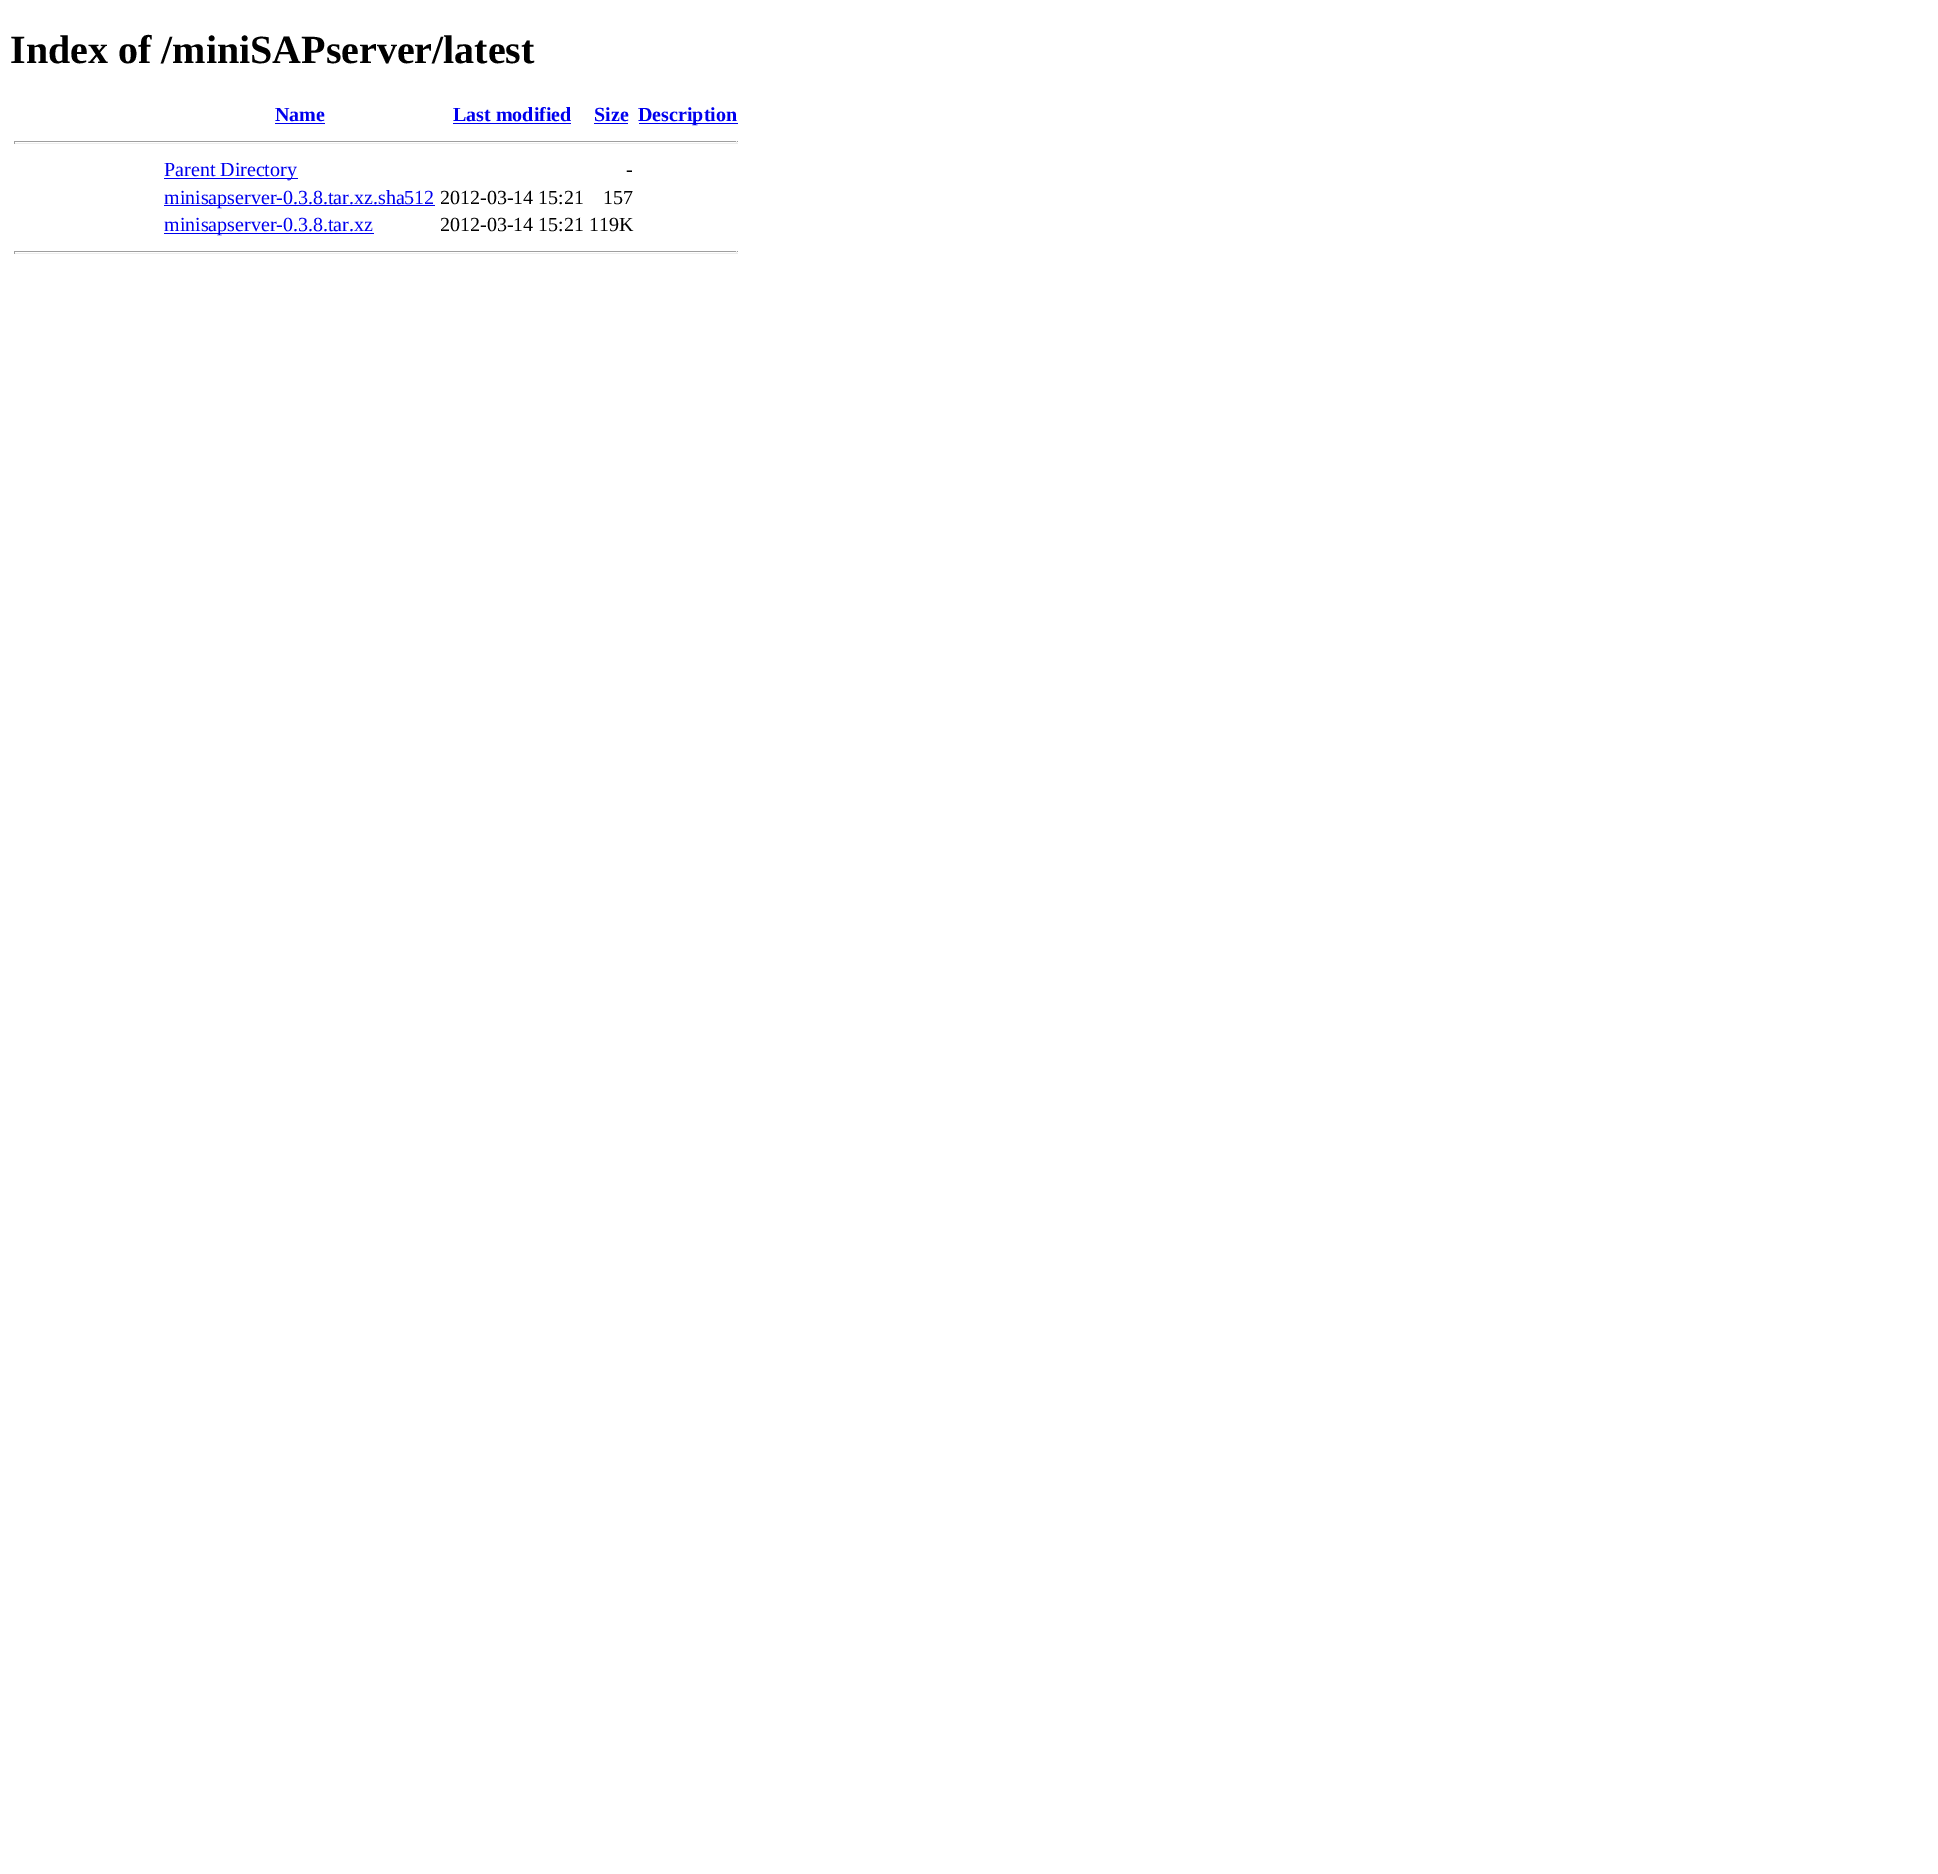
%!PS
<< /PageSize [1938 1874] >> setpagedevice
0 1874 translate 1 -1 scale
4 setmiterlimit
1 setgray
0 0 1938 1874 rectfill
/LiberationSerif-Bold [40 0 0 -40 0 0] selectfont
0 setgray
10 63 moveto (Index of /miniSAPserver/latest) show
/LiberationSerif-Bold [20 0 0 -20 0 0] selectfont
0 0 0.933 setrgbcolor
275 121 moveto (Name) show
275 123 50 1 rectfill
453 121 moveto (Last modified) show
453 123 118 1 rectfill
594 121 moveto (Size) show
594 123 34 1 rectfill
639 123 99 1 rectfill
638 121 moveto (Description) show
0.624 setgray
14 141 724 1 rectfill
0.933 setgray
736 141 1 3 rectfill
14 143 724 1 rectfill
0.624 setgray
14 141 1 3 rectfill
0 0 0.933 setrgbcolor
164 178 134 1 rectfill
/LiberationSerif-Regular [20 0 0 -20 0 0] selectfont
164 176 moveto (Parent Directory) show
0 setgray
626 176 moveto (-) show
0 0 0.933 setrgbcolor
164 205 271 1 rectfill
164 204 moveto (minisapserver-0.3.8.tar.xz.sha512) show
0 setgray
440 204 moveto (2012-03-14 15:21) show
603 204 moveto (157) show
0 0 0.933 setrgbcolor
164 233 210 1 rectfill
164 231 moveto (minisapserver-0.3.8.tar.xz) show
0 setgray
440 231 moveto (2012-03-14 15:21 119K) show
0.624 setgray
14 251 724 1 rectfill
0.933 setgray
736 251 1 3 rectfill
14 253 724 1 rectfill
0.624 setgray
14 251 1 3 rectfill
showpage
